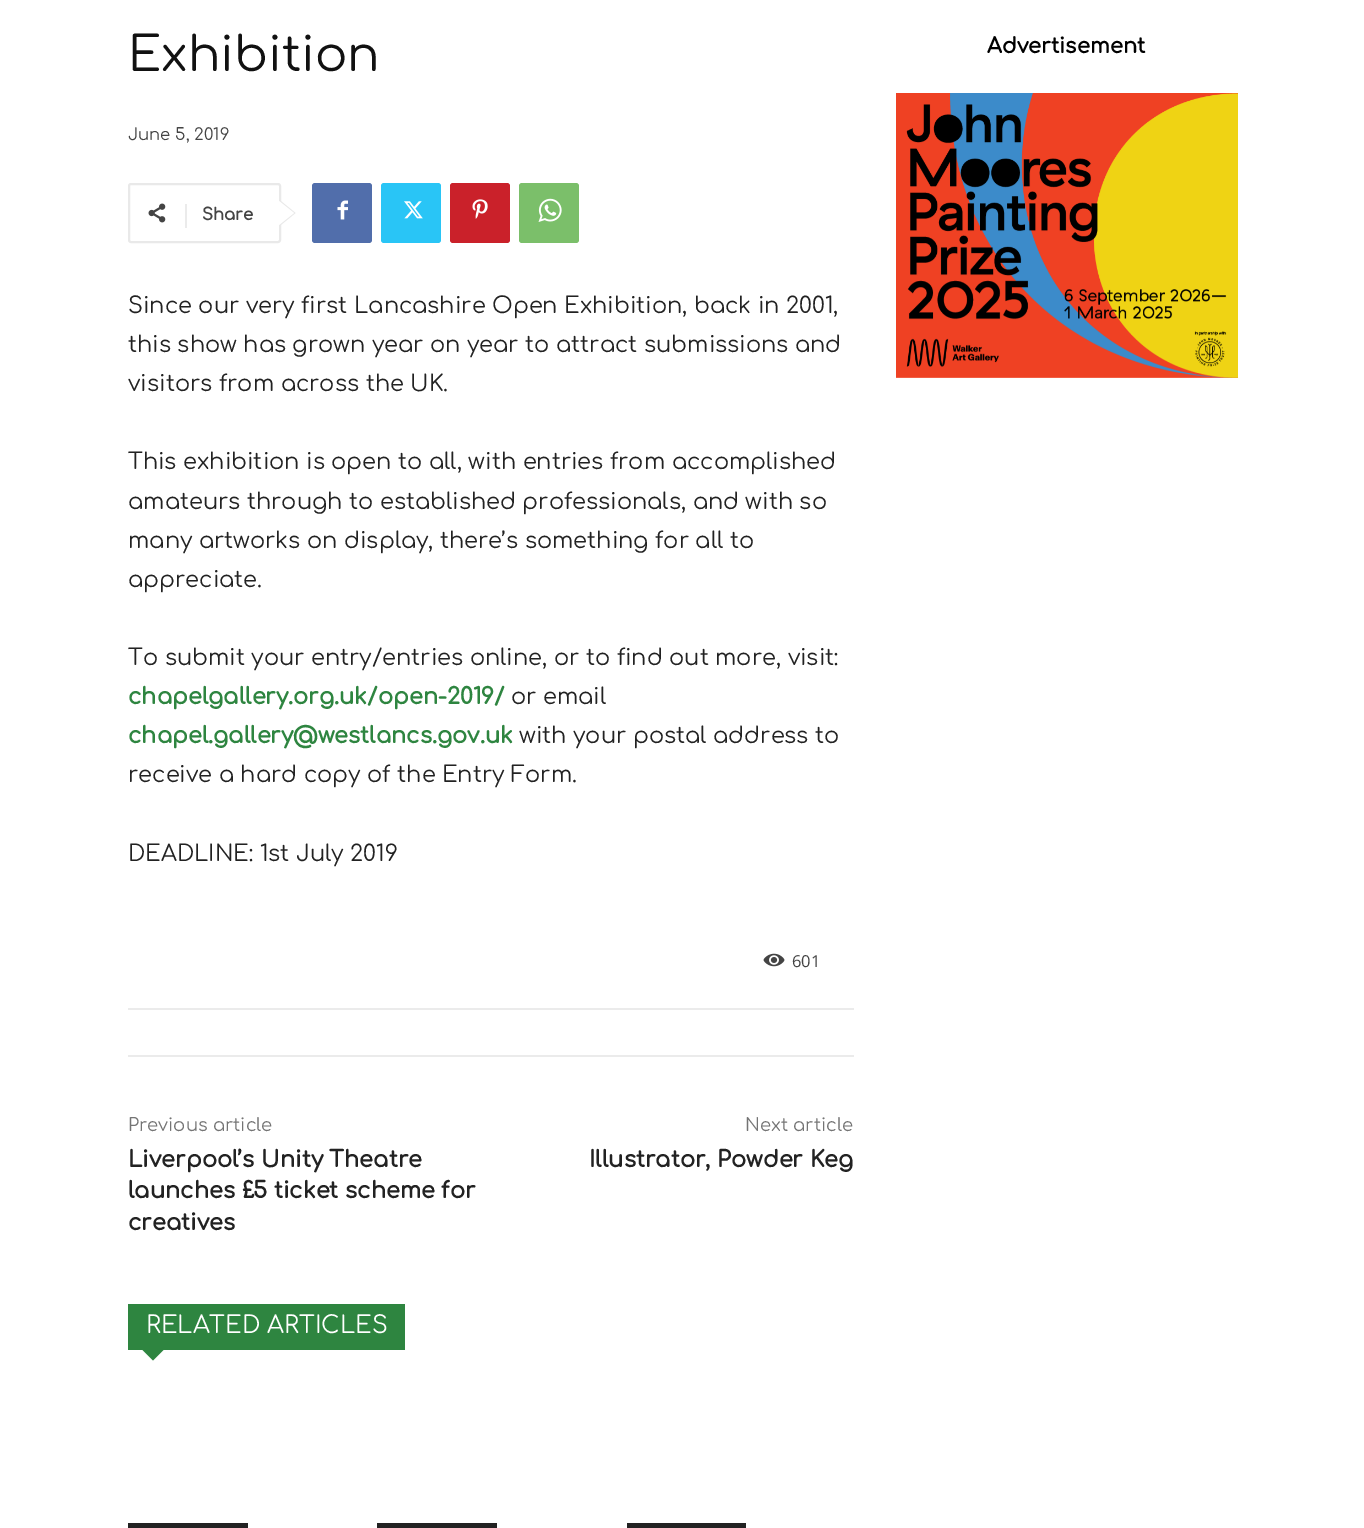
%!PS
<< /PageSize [1364 1528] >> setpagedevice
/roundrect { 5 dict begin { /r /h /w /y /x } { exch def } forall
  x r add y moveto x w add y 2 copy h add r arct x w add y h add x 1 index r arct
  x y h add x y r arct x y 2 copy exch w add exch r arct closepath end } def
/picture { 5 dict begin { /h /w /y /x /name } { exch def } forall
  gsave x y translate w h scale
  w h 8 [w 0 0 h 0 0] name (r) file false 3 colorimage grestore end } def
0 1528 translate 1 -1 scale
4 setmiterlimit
1 setgray
0 0 1364 1528 rectfill
/Comfortaa-Regular [48 0 0 -48 0 0] selectfont
0.067 setgray
128 71 moveto (Exhibition) show
/Comfortaa-Regular [16.5 0 0 -16.5 0 0] selectfont
0.267 setgray
128 140 moveto (June 5, 2019) show
0.914 setgray
2 setlinewidth
129 184 151 58 2 roundrect stroke
newpath 279 226.5 moveto 279 199.5 lineto 295.5 213 lineto closepath fill
(img1.rgb) 148 203 18 20 picture
0.922 setgray
185 204 2 24 rectfill
/Comfortaa-Bold [16.5 0 0 -16.5 0 0] selectfont
0.267 setgray
202 220 moveto (Share) show
1 setgray
newpath 279 225 moveto 279 201 lineto 294 213 lineto closepath fill
0.318 0.431 0.671 setrgbcolor
312 183 60 60 3 roundrect fill
(img2.rgb) 337 200 11 20 picture
0.161 0.773 0.965 setrgbcolor
381 183 60 60 3 roundrect fill
(img3.rgb) 404 201 19 18 picture
0.792 0.129 0.165 setrgbcolor
450 183 60 60 3 roundrect fill
(img4.rgb) 472 199 16 20 picture
0.482 0.749 0.416 setrgbcolor
519 183 60 60 3 roundrect fill
(img5.rgb) 538 198 24 24 picture
/Comfortaa-Regular [22.5 0 0 -22.5 0 0] selectfont
0.133 setgray
128 313 moveto (Since our very first Lancashire Open Exhibition, back in 2001,) show
128 352 moveto (this show has grown year on year to attract submissions and) show
128 391 moveto (visitors from across the UK.) show
128 469 moveto (This exhibition is open to all, with entries from accomplished) show
128 509 moveto (amateurs through to established professionals, and with so) show
128 548 moveto (many artworks on display, there’s something for all to) show
128 587 moveto (appreciate.) show
128 665 moveto (To submit your entry/entries online, or to find out more, visit:) show
/Comfortaa-Bold [22.5 0 0 -22.5 0 0] selectfont
0.18 0.522 0.251 setrgbcolor
128 704 moveto (chapelgallery.org.uk/open-2019/) show
/Comfortaa-Regular [22.5 0 0 -22.5 0 0] selectfont
0.133 setgray
511 704 moveto (or email) show
/Comfortaa-Bold [22.5 0 0 -22.5 0 0] selectfont
0.18 0.522 0.251 setrgbcolor
128 743 moveto (chapel.gallery@westlancs.gov.uk) show
/Comfortaa-Regular [22.5 0 0 -22.5 0 0] selectfont
0.133 setgray
519 743 moveto (with your postal address to) show
128 782 moveto (receive a hard copy of the Entry Form.) show
128 861 moveto (DEADLINE: 1st July 2019) show
(img6.rgb) 763 953 22 14 picture
/OpenSans-Regular [16.5 0 0 -16.5 0 0] selectfont
0.267 setgray
792 967 moveto (601) show
0.922 setgray
128 1008 726 2 rectfill
128 1055 726 2 rectfill
/Comfortaa-Regular [18 0 0 -18 0 0] selectfont
0.455 setgray
128 1131 moveto (Previous article) show
/Comfortaa-Bold [22.5 0 0 -22.5 0 0] selectfont
0.133 setgray
128 1167 moveto (Liverpool’s Unity Theatre) show
128 1198 moveto (launches £5 ticket scheme for) show
128 1230 moveto (creatives) show
/Comfortaa-Regular [18 0 0 -18 0 0] selectfont
0.455 setgray
745 1131 moveto (Next article) show
/Comfortaa-Bold [22.5 0 0 -22.5 0 0] selectfont
0.133 setgray
589 1167 moveto (Illustrator, Powder Keg) show
0.18 0.522 0.251 setrgbcolor
128 1304 277 46 rectfill
/Comfortaa-Regular [24 0 0 -24 0 0] selectfont
1 setgray
146 1333 moveto (RELATED ARTICLES) show
0.18 0.522 0.251 setrgbcolor
newpath 142.5 1350 moveto 163.5 1350 lineto 153 1360.5 lineto closepath fill
0.133 setgray
128 1523 120 5 rectfill
377 1523 120 5 rectfill
627 1523 119 5 rectfill
/Comfortaa-Bold [21 0 0 -21 0 0] selectfont
0 setgray
987 53 moveto (Advertisement) show
(img7.rgb) 896 93 342 285 picture
showpage
